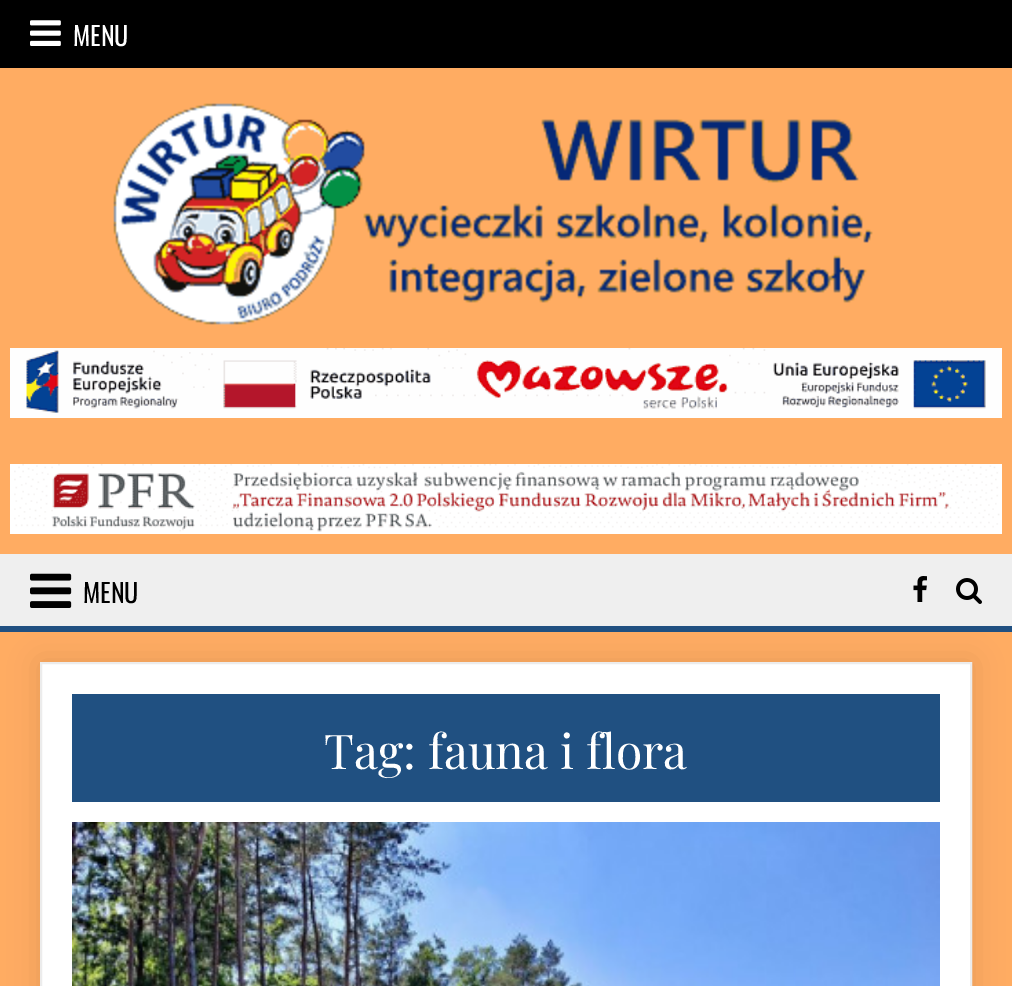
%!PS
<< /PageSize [1012 986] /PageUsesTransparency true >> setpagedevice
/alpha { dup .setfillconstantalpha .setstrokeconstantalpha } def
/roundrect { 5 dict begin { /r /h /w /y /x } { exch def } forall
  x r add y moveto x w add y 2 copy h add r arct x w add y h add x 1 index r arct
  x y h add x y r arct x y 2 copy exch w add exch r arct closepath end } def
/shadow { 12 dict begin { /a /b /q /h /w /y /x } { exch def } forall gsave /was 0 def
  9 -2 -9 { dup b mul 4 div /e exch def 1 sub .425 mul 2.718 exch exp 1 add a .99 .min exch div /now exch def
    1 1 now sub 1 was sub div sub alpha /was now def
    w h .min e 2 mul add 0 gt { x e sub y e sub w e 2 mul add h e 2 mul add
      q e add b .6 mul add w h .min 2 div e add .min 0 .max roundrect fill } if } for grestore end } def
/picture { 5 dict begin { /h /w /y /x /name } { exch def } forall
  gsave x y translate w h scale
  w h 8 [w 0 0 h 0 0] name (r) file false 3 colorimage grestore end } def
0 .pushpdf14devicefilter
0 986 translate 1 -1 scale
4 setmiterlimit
1 0.675 0.384 setrgbcolor
0 0 1012 986 rectfill
0 setgray
0 0 1012 68 rectfill
(img1.rgb) 30 20 31 26 picture
/Oswald-Regular [26 0 0 -26 0 0] selectfont
1 setgray
73 46 moveto (MENU) show
(img2.rgb) 113 103 760 222 picture
(img3.rgb) 10 348 992 70 picture
(img4.rgb) 10 464 992 70 picture
0.937 setgray
0 554 1012 72 rectfill
0.125 0.314 0.506 setrgbcolor
0 626 1012 6 rectfill
(img5.rgb) 30 573 42 35 picture
0 setgray
83 603 moveto (MENU) show
(img6.rgb) 913 576 14 26 picture
(img7.rgb) 956 578 26 26 picture
40 662 932 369 0 15 0.1 shadow
1 setgray
newpath 41 663 moveto 971 663 lineto 971 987 lineto 41 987 lineto closepath gsave fill grestore
0.925 setgray
2 setlinewidth
stroke
0.125 0.314 0.506 setrgbcolor
72 694 868 108 rectfill
/PlayfairDisplay-Regular [48 0 0 -48 0 0] selectfont
1 setgray
324 769 moveto (Tag: fauna i flora) show
(img8.rgb) 72 822 868 164 picture
.poppdf14devicefilter showpage
